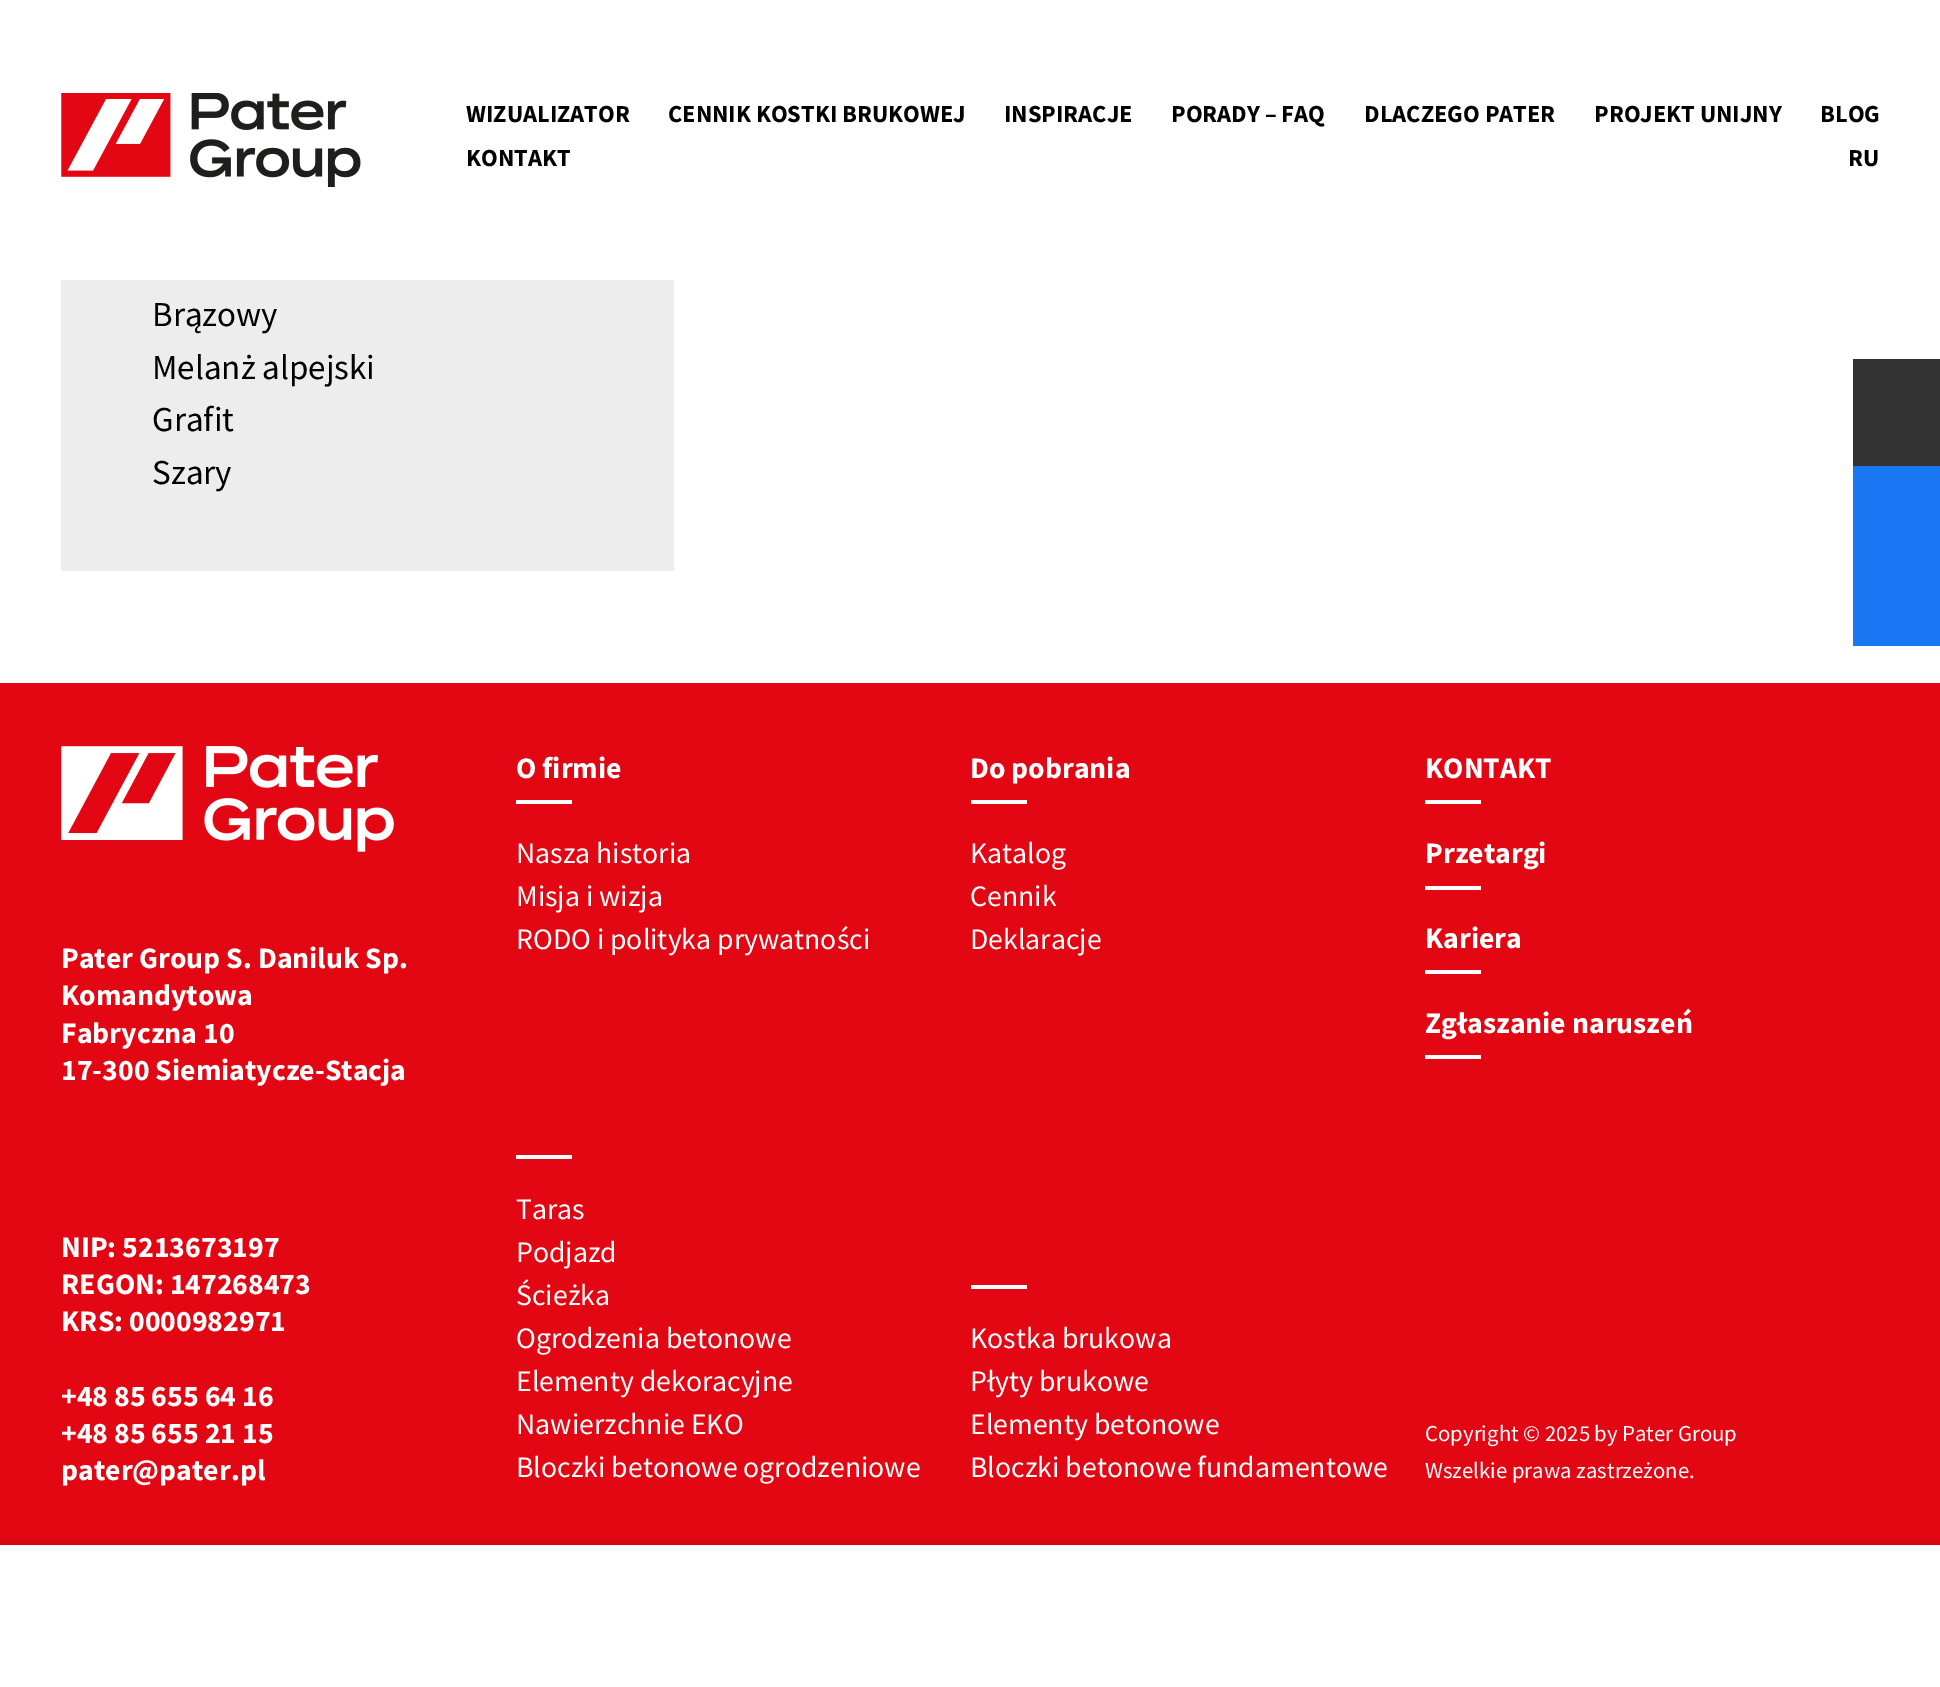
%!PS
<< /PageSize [1940 1687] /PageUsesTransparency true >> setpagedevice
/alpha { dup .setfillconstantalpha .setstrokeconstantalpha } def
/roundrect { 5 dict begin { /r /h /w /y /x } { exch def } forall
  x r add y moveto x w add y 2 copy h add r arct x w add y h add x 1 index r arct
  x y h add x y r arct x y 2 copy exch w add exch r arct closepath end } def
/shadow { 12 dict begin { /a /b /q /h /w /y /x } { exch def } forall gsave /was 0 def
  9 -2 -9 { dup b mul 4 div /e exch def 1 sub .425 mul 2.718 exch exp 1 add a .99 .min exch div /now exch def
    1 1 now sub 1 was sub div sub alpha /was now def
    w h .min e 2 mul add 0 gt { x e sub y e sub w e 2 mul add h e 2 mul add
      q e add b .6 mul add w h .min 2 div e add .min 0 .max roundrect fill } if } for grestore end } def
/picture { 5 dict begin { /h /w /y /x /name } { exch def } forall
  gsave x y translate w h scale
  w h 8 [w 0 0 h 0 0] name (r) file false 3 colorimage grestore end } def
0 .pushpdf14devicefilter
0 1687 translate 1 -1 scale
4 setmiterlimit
1 setgray
0 0 1940 1687 rectfill
(img1.rgb) 61 93 300 94 picture
/SourceSansPro-Bold [24.5 0 0 -24.5 0 0] selectfont
0 setgray
466 122 moveto (WIZUALIZATOR) show
668 122 moveto (CENNIK KOSTKI BRUKOWEJ) show
1004 122 moveto (INSPIRACJE) show
1171 122 moveto (PORADY – FAQ) show
1364 122 moveto (DLACZEGO PATER) show
1594 122 moveto (PROJEKT UNIJNY) show
1820 122 moveto (BLOG) show
466 166 moveto (KONTAKT) show
1848 166 moveto (RU) show
0.929 setgray
61 280 613 291 rectfill
/SourceSansPro-Regular [35 0 0 -35 0 0] selectfont
0 setgray
152 326 moveto (Brązowy) show
152 379 moveto (Melanż alpejski) show
152 431 moveto (Grafit) show
152 484 moveto (Szary) show
0.2 setgray
1853 359 87 107 rectfill
0.098 0.467 0.953 setrgbcolor
1853 466 87 180 rectfill
0.89 0.024 0.075 setrgbcolor
0 683 1940 862 rectfill
(img2.rgb) 61 746 333 106 picture
/SourceSansPro-Bold [29.75 0 0 -29.75 0 0] selectfont
1 setgray
61 968 moveto (Pater Group S. Daniluk Sp.) show
61 1005 moveto (Komandytowa) show
61 1043 moveto (Fabryczna 10) show
61 1080 moveto (17-300 Siemiatycze-Stacja) show
516 778 moveto (O firmie) show
516 800 56 4 rectfill
/SourceSansPro-Regular [29.75 0 0 -29.75 0 0] selectfont
516 863 moveto (Nasza historia) show
516 906 moveto (Misja i wizja) show
516 949 moveto (RODO i polityka prywatności) show
/SourceSansPro-Bold [29.75 0 0 -29.75 0 0] selectfont
970 778 moveto (Do pobrania) show
971 800 56 4 rectfill
/SourceSansPro-Regular [29.75 0 0 -29.75 0 0] selectfont
970 863 moveto (Katalog) show
970 906 moveto (Cennik) show
970 949 moveto (Deklaracje) show
/SourceSansPro-Bold [29.75 0 0 -29.75 0 0] selectfont
1425 778 moveto (KONTAKT) show
1425 800 56 4 rectfill
1425 863 moveto (Przetargi) show
1425 886 56 4 rectfill
1425 948 moveto (Kariera) show
1425 970 56 4 rectfill
1425 1033 moveto (Zgłaszanie naruszeń) show
1425 1055 56 4 rectfill
61 1257 moveto (NIP: 5213673197) show
61 1294 moveto (REGON: 147268473) show
61 1331 moveto (KRS: 0000982971) show
61 1406 moveto (+48 85 655 64 16) show
61 1443 moveto (+48 85 655 21 15) show
61 1480 moveto (pater@pater.pl) show
516 1155 56 4 rectfill
/SourceSansPro-Regular [29.75 0 0 -29.75 0 0] selectfont
516 1219 moveto (Taras) show
516 1262 moveto (Podjazd) show
516 1305 moveto (Ścieżka) show
516 1348 moveto (Ogrodzenia betonowe) show
516 1391 moveto (Elementy dekoracyjne) show
516 1434 moveto (Nawierzchnie EKO) show
516 1477 moveto (Bloczki betonowe ogrodzeniowe) show
971 1285 56 4 rectfill
970 1348 moveto (Kostka brukowa) show
970 1391 moveto (Płyty brukowe) show
970 1434 moveto (Elementy betonowe) show
970 1477 moveto (Bloczki betonowe fundamentowe) show
/SourceSansPro-Regular [22.75 0 0 -22.75 0 0] selectfont
1425 1441 moveto (Copyright © 2025 by Pater Group) show
1425 1478 moveto (Wszelkie prawa zastrzeżone.) show
0 setgray
0 1549 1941 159 0 7 0.3 shadow
1 setgray
0 1545 1940 142 rectfill
.poppdf14devicefilter showpage
